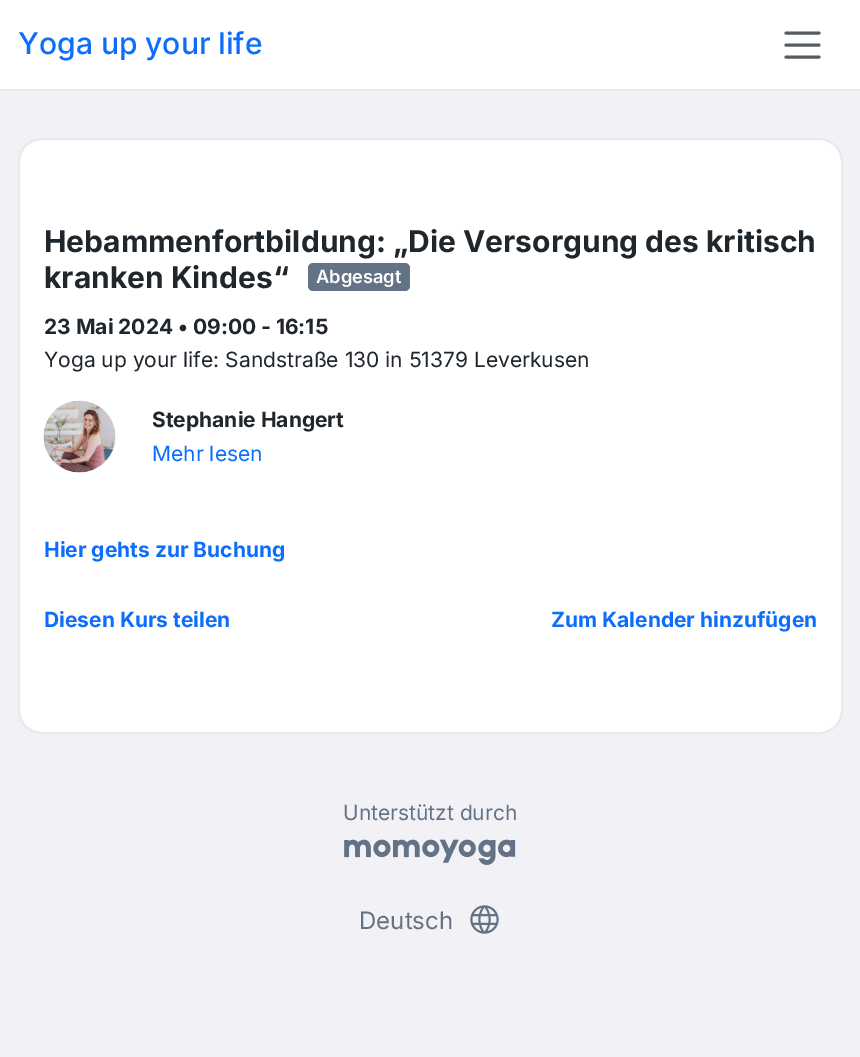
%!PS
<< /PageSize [860 1057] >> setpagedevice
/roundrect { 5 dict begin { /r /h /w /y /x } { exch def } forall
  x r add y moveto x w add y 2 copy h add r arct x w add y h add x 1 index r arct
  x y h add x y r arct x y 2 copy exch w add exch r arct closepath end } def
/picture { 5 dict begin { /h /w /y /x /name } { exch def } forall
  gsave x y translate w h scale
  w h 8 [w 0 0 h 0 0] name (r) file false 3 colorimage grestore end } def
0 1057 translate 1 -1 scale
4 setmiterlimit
0.949 0.945 0.965 setrgbcolor
0 0 860 1057 rectfill
1 setgray
0 0 860 89 rectfill
0.91 0.918 0.929 setrgbcolor
0 89 860 2 rectfill
/Inter-Medium [30 0 0 -30 0 0] selectfont
0.051 0.431 0.992 setrgbcolor
18 54 moveto (Yoga up your life) show
0.341 0.361 0.38 setrgbcolor
3 setlinewidth
1 setlinecap
newpath 786 33 moveto 819 33 lineto 786 45 moveto 819 45 lineto 786 57 moveto 819 57 lineto stroke
1 setgray
19 139 823 594 23 roundrect gsave fill grestore
0.91 0.918 0.929 setrgbcolor
2 setlinewidth
0 setlinecap
stroke
/Inter-Bold [30 0 0 -30 0 0] selectfont
0.122 0.149 0.173 setrgbcolor
44 252 moveto (Hebammenfortbildung: „Die Versorgung des kritisch) show
44 288 moveto (kranken Kindes“) show
0.392 0.447 0.525 setrgbcolor
308 263 102 28 5 roundrect fill
/Inter-SemiBold [18.25 0 0 -18.25 0 0] selectfont
1 setgray
316 283 moveto (Abgesagt) show
/Inter-Bold [21 0 0 -21 0 0] selectfont
0.122 0.149 0.173 setrgbcolor
44 334 moveto (23 Mai 2024 • 09:00 - 16:15) show
/Inter-Regular [21 0 0 -21 0 0] selectfont
44 367 moveto (Yoga up your life: Sandstraße 130 in 51379 Leverkusen) show
(img1.rgb) 43 400 73 73 picture
/Inter-Bold [21 0 0 -21 0 0] selectfont
152 427 moveto (Stephanie Hangert) show
/Inter-Regular [21 0 0 -21 0 0] selectfont
0.051 0.431 0.992 setrgbcolor
152 461 moveto (Mehr lesen) show
/Inter-Bold [21 0 0 -21 0 0] selectfont
44 557 moveto (Hier gehts zur Buchung) show
44 627 moveto (Diesen Kurs teilen) show
551 627 moveto (Zum Kalender hinzufügen) show
/Inter-Regular [21 0 0 -21 0 0] selectfont
0.392 0.447 0.525 setrgbcolor
343 820 moveto (Unterstützt durch) show
(img2.rgb) 344 839 172 26 picture
/Inter-Regular [24 0 0 -24 0 0] selectfont
359 929 moveto (Deutsch) show
(img3.rgb) 470 905 29 29 picture
showpage
